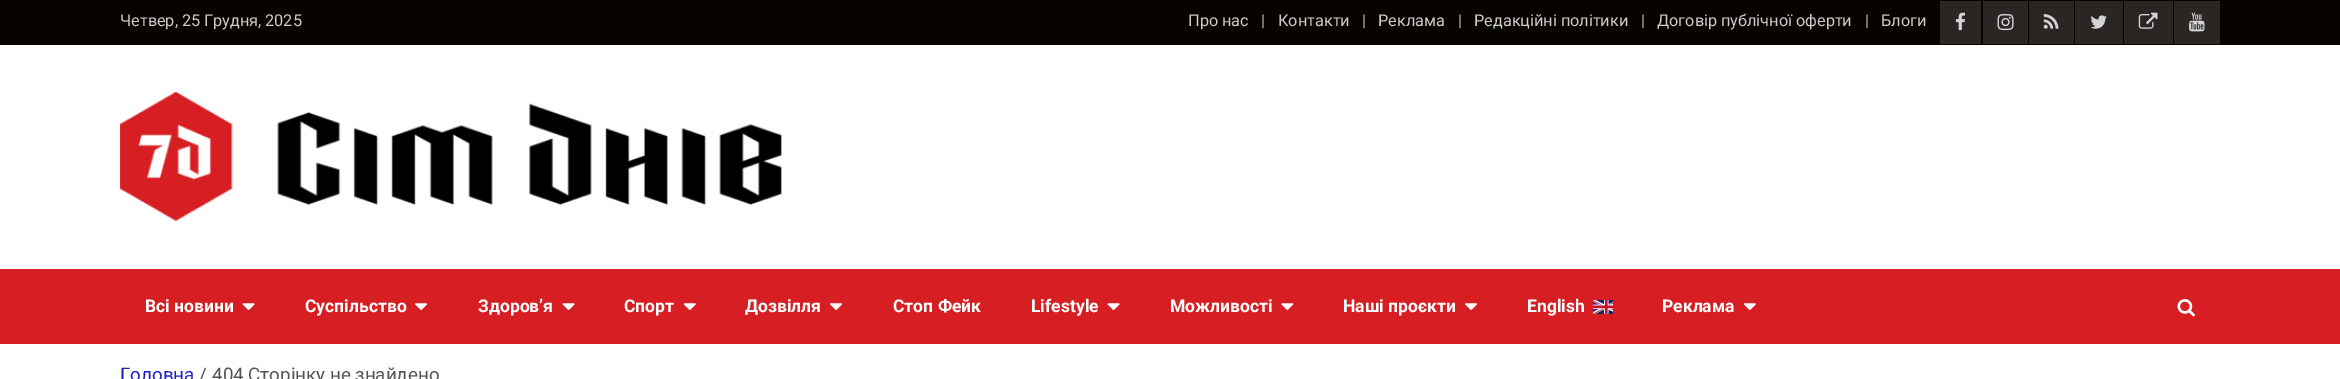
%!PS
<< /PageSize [2340 379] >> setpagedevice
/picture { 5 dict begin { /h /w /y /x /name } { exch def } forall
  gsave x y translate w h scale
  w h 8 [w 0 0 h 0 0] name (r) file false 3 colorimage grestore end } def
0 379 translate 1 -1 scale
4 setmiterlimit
0.027 0.016 0 setrgbcolor
0 0 2340 379 rectfill
/Roboto-Regular [16.25 0 0 -16.25 0 0] selectfont
0.8 setgray
120 26 moveto (Четвер, 25 Грудня, 2025) show
1188 26 moveto (Про нас) show
1261 26 moveto (|) show
1278 26 moveto (Контакти) show
1362 26 moveto (|) show
1378 26 moveto (Реклама) show
1458 26 moveto (|) show
1474 26 moveto (Редакційні політики) show
1641 26 moveto (|) show
1657 26 moveto (Договір публічної оферти) show
1865 26 moveto (|) show
1881 26 moveto (Блоги) show
0.161 0.149 0.137 setrgbcolor
1940 1 41 43 rectfill
(img1.rgb) 1956 12 10 19 picture
1983 1 45 43 rectfill
(img2.rgb) 1997 14 17 17 picture
2029 1 45 43 rectfill
(img3.rgb) 2043 14 16 15 picture
2075 1 48 43 rectfill
(img4.rgb) 2090 15 17 14 picture
2124 1 49 43 rectfill
(img5.rgb) 2138 12 20 17 picture
2174 1 46 43 rectfill
(img6.rgb) 2189 12 16 20 picture
1 setgray
0 45 2340 224 rectfill
(img7.rgb) 120 91 662 130 picture
0.843 0.118 0.137 setrgbcolor
0 269 2340 75 rectfill
/Roboto-Bold [17.5 0 0 -17.5 0 0] selectfont
1 setgray
145 312 moveto (Всі новини) show
(img8.rgb) 242 303 13 7 picture
305 312 moveto (Суспільство) show
(img9.rgb) 415 303 13 7 picture
478 312 moveto (Здоров’я) show
(img8.rgb) 562 303 13 7 picture
624 312 moveto (Спорт) show
(img10.rgb) 683 303 13 7 picture
745 312 moveto (Дозвілля) show
(img9.rgb) 830 303 13 7 picture
893 312 moveto (Стоп Фейк) show
1031 312 moveto (Lifestyle) show
(img8.rgb) 1107 303 13 7 picture
1170 312 moveto (Можливості) show
(img11.rgb) 1281 303 13 7 picture
1343 312 moveto (Наші проєкти) show
(img9.rgb) 1465 303 13 7 picture
1527 312 moveto (English) show
(img12.rgb) 1593 300 20 14 picture
1662 312 moveto (Реклама) show
(img10.rgb) 1743 303 13 7 picture
(img13.rgb) 2177 299 18 18 picture
0 344 2340 35 rectfill
/Roboto-Regular [18.75 0 0 -18.75 0 0] selectfont
0.122 0.122 0.769 setrgbcolor
120 381 moveto (Головна) show
0.333 setgray
199 381 moveto (/) show
212 381 moveto (404 Сторінку не знайдено) show
showpage
